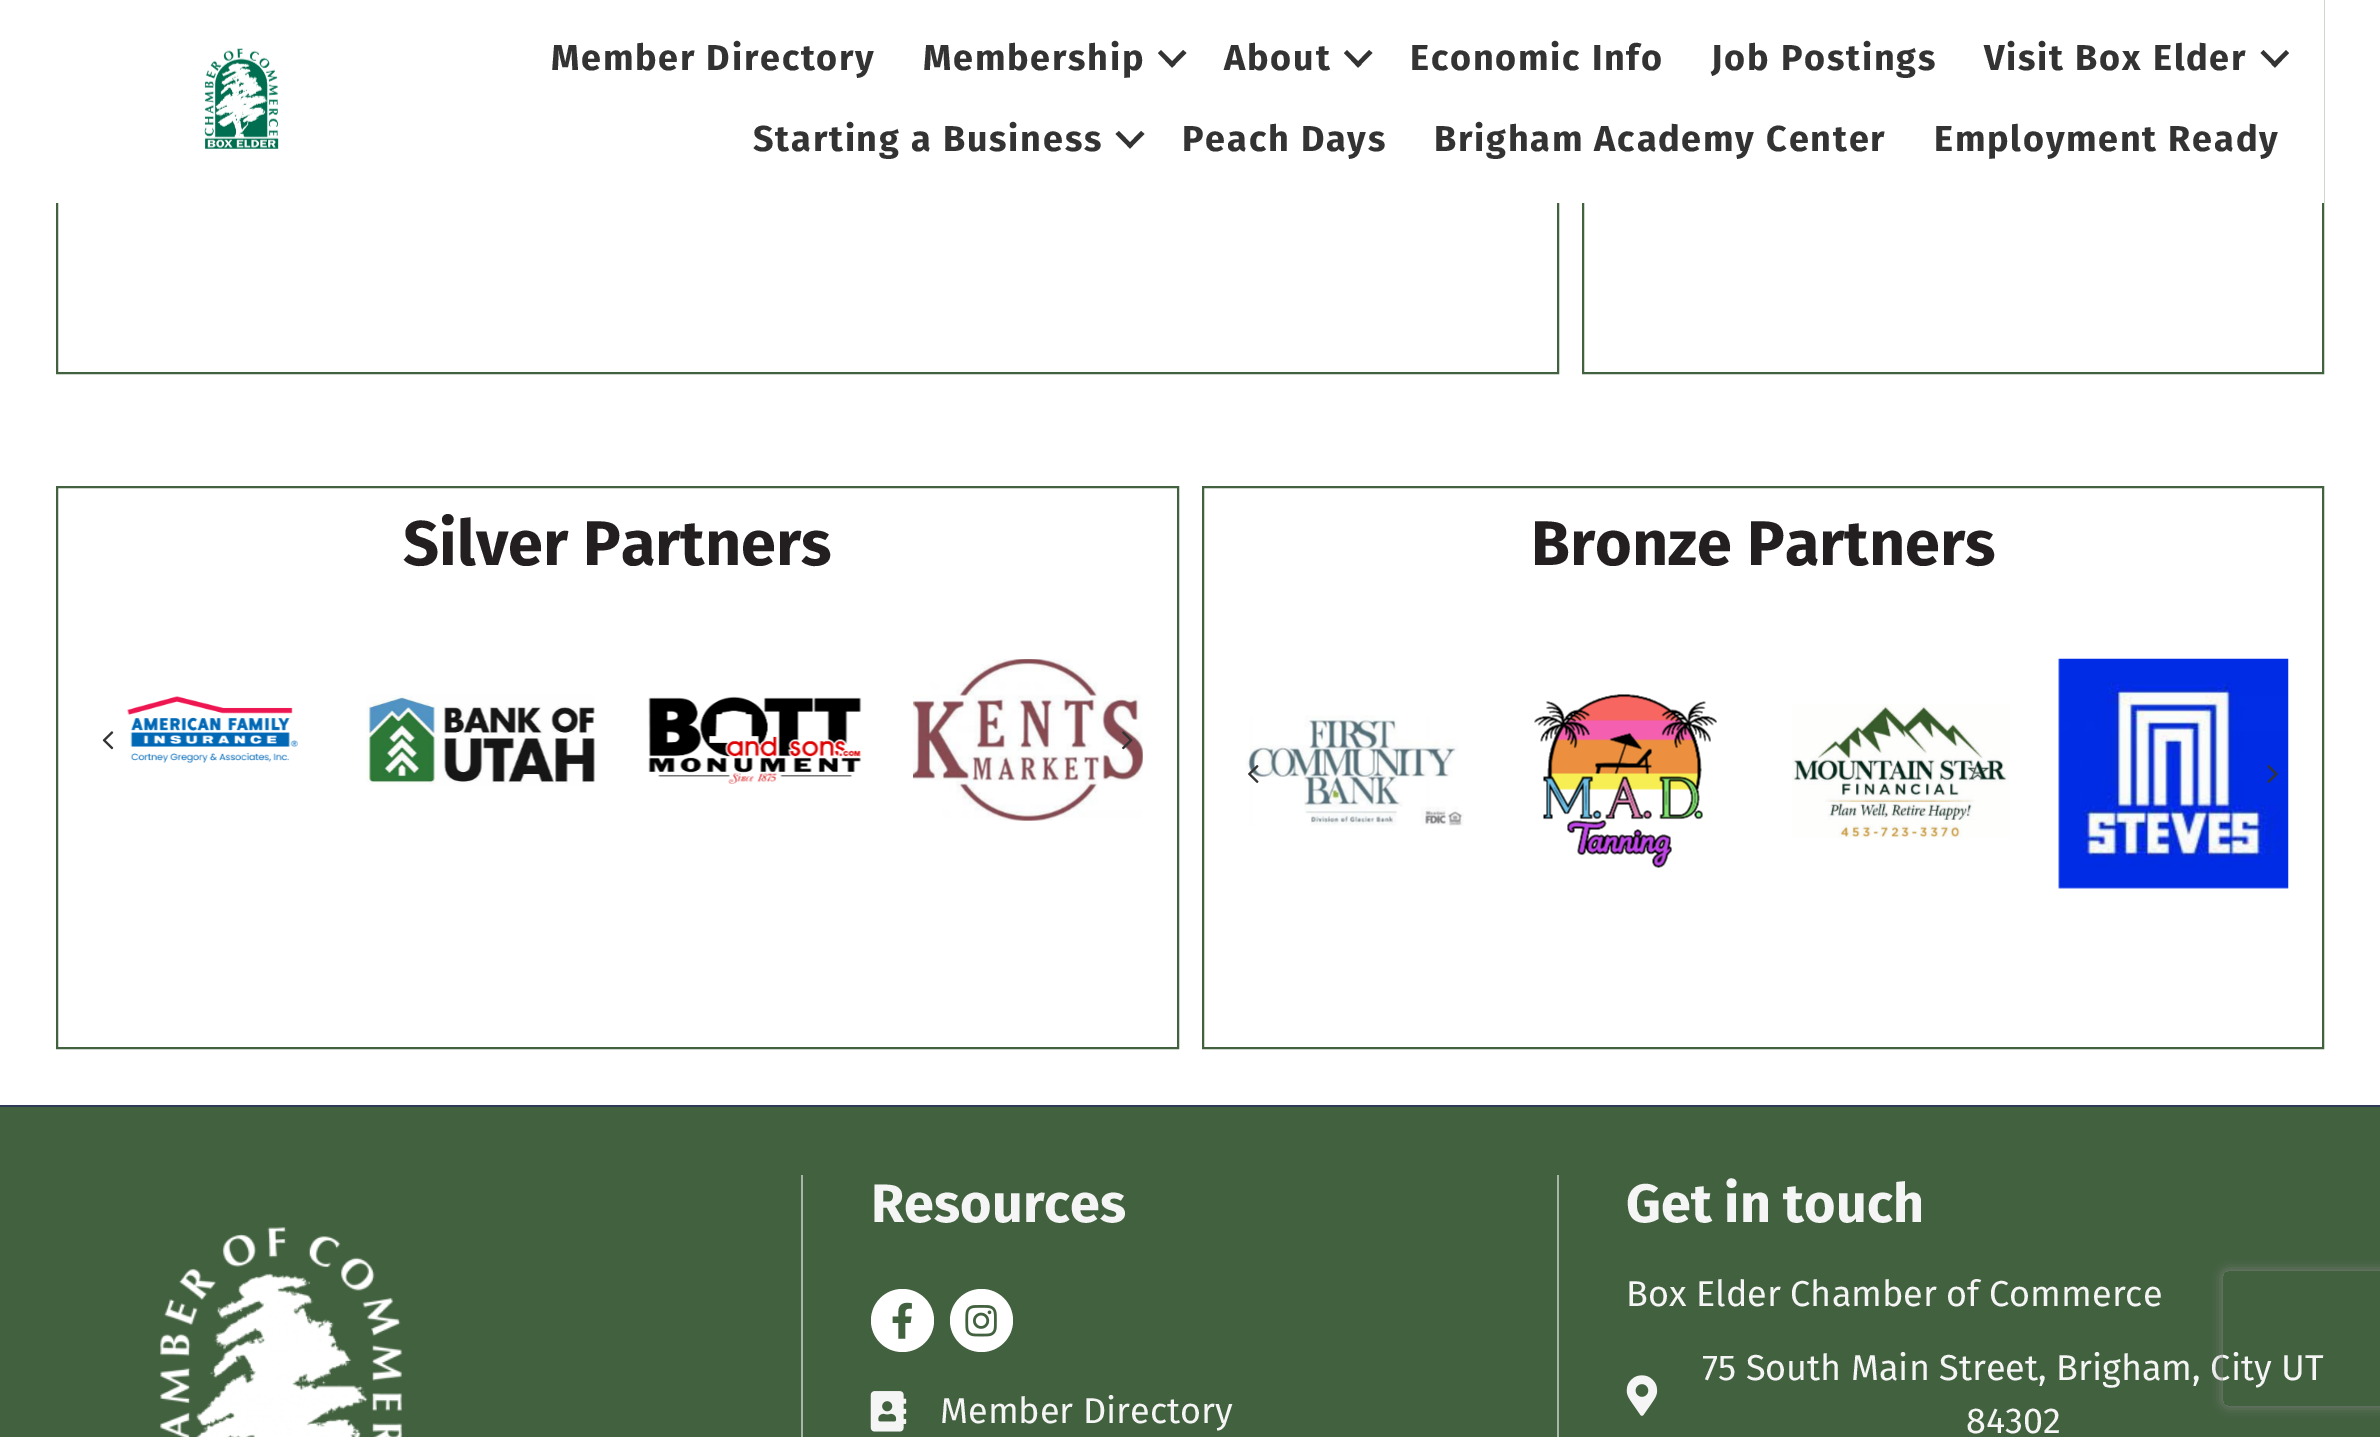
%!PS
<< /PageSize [2380 1437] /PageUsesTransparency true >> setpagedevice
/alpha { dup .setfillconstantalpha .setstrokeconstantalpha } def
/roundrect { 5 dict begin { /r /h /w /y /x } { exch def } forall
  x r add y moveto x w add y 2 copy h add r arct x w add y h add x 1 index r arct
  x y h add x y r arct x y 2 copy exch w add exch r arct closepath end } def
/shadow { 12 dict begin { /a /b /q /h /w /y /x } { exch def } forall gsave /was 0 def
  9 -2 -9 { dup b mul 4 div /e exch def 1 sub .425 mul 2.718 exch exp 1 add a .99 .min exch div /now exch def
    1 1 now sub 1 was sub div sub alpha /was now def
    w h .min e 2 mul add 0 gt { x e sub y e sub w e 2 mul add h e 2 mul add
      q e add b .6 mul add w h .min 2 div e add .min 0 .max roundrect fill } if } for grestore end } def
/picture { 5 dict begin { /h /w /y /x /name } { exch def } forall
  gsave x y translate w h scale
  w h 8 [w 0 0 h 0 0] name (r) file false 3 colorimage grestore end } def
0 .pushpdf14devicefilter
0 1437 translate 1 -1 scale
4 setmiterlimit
1 setgray
0 0 2380 1437 rectfill
0.259 0.38 0.247 setrgbcolor
2 setlinewidth
57 -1 1501 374 rectstroke
1583 -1 740 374 rectstroke
1 setgray
56 0 2268 203 rectfill
(img1.rgb) 204 48 75 101 picture
/FiraSans-Bold [36 0 0 -36 0 0] selectfont
0.2 setgray
551 70 moveto 1.8 0 (Member Directory) ashow
923 70 moveto 1.8 0 (Membership) ashow
newpath 1183 50 moveto 1186.5 53 lineto 1172 67.5 lineto 1169 64.5 lineto closepath fill
newpath 1161 50 moveto 1175.5 64.5 lineto 1172 67.5 lineto 1158 53 lineto closepath fill
1224 70 moveto 1.8 0 (About) ashow
newpath 1369 50 moveto 1372.5 53 lineto 1358 67.5 lineto 1355 64.5 lineto closepath fill
newpath 1347 50 moveto 1361.5 64.5 lineto 1358 67.5 lineto 1344 53 lineto closepath fill
1410 70 moveto 1.8 0 (Economic Info) ashow
1711 70 moveto 1.8 0 (Job Postings) ashow
1984 70 moveto 1.8 0 (Visit Box Elder) ashow
newpath 2286 50 moveto 2289 53 lineto 2275 67.5 lineto 2271.5 64.5 lineto closepath fill
newpath 2263.5 50 moveto 2278 64.5 lineto 2275 67.5 lineto 2260.5 53 lineto closepath fill
753 151 moveto 1.8 0 (Starting a Business) ashow
newpath 1141 131 moveto 1144.5 134 lineto 1130 148.5 lineto 1127 145.5 lineto closepath fill
newpath 1119 131 moveto 1133 145.5 lineto 1130 148.5 lineto 1115.5 134 lineto closepath fill
1182 151 moveto 1.8 0 (Peach Days) ashow
1434 151 moveto 1.8 0 (Brigham Academy Center) ashow
1934 151 moveto 1.8 0 (Employment Ready) ashow
0.259 0.38 0.247 setrgbcolor
57 487 1121 561 rectstroke
/FiraSans-Bold [63 0 0 -63 0 0] selectfont
0.137 0.122 0.125 setrgbcolor
403 565 moveto (Silver Partners) show
(img2.rgb) 102 731 12 19 picture
(img3.rgb) 126 696 172 67 picture
(img4.rgb) 366 695 229 90 picture
(img5.rgb) 648 696 214 88 picture
(img6.rgb) 913 659 230 162 picture
(img7.rgb) 1122 731 11 19 picture
0.259 0.38 0.247 setrgbcolor
1203 487 1120 561 rectstroke
0.137 0.122 0.125 setrgbcolor
1531 565 moveto (Bronze Partners) show
(img8.rgb) 1246 715 218 111 picture
(img9.rgb) 1534 694 183 174 picture
(img10.rgb) 1792 704 217 134 picture
(img11.rgb) 2058 658 231 231 picture
(img12.rgb) 1248 765 11 18 picture
(img13.rgb) 2267 765 11 18 picture
0.259 0.38 0.247 setrgbcolor
0 1107 2380 330 rectfill
0.173 0.227 0.337 setrgbcolor
0 1105 2380 2 rectfill
(img14.rgb) 160 1227 243 210 picture
0.659 0.714 0.655 setrgbcolor
801 1175 2 262 rectfill
/FiraSans-Bold [54 0 0 -54 0 0] selectfont
0.961 setgray
871 1222 moveto (Resources) show
1 setgray
newpath 902.5 1320.5 31.5 0 360 arc closepath fill
(img15.rgb) 892 1302 20 37 picture
newpath 981.5 1320.5 31.5 0 360 arc closepath fill
(img16.rgb) 965 1305 32 32 picture
(img17.rgb) 870 1391 37 41 picture
/FiraSans-Regular [36 0 0 -36 0 0] selectfont
0.961 setgray
940 1423 moveto (Member Directory) show
0.659 0.714 0.655 setrgbcolor
1557 1175 2 262 rectfill
/FiraSans-Bold [54 0 0 -54 0 0] selectfont
0.961 setgray
1626 1222 moveto (Get in touch) show
/FiraSans-Regular [36 0 0 -36 0 0] selectfont
1626 1306 moveto (Box Elder Chamber of Commerce) show
(img18.rgb) 1626 1375 32 41 picture
1702 1380 moveto (75 South Main Street, Brigham, City UT) show
1966 1433 moveto (84302) show
gsave
newpath 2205 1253 moveto 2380 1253 lineto 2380 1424 lineto 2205 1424 lineto closepath 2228 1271 moveto 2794 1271 lineto 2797 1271 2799 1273 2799 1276 curveto 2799 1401 lineto 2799 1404 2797 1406 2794 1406 curveto 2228 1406 lineto 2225 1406 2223 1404 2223 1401 curveto 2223 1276 lineto 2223 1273 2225 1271 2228 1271 curveto closepath eoclip newpath
0.502 setgray
2223 1271 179 135 5 5.5 1 shadow
grestore
.poppdf14devicefilter showpage
